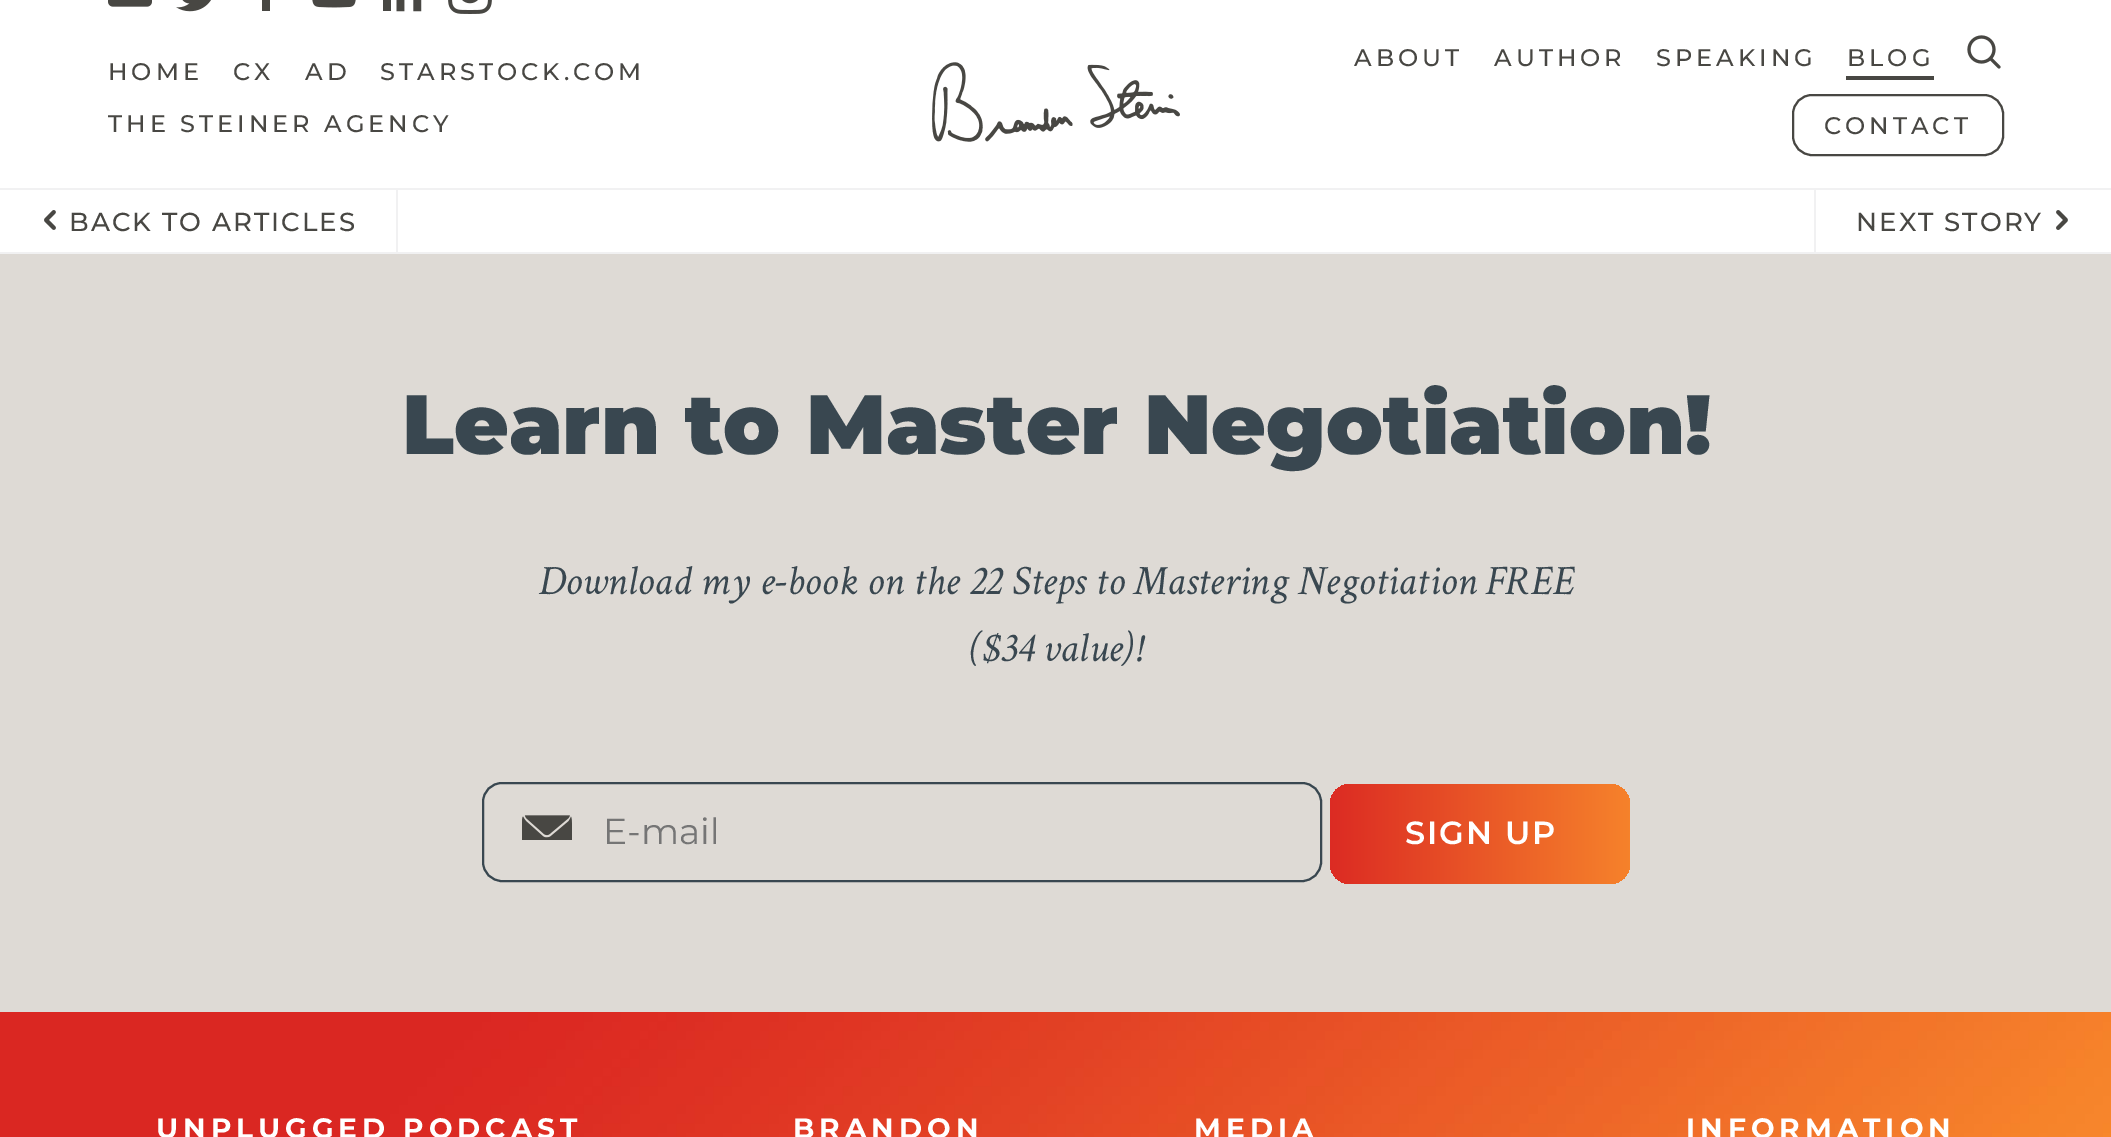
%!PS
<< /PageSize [2111 1137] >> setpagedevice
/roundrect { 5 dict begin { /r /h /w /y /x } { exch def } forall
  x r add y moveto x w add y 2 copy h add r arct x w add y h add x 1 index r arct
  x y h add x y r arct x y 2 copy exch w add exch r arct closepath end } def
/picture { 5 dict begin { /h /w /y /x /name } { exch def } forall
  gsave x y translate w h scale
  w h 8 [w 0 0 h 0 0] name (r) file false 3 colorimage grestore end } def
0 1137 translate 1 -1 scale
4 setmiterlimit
1 setgray
0 0 2111 1137 rectfill
0.945 0.945 0.949 setrgbcolor
0 252 2111 2 rectfill
(img1.rgb) 108 0 44 7 picture
(img2.rgb) 176 0 35 12 picture
0.282 0.278 0.263 setrgbcolor
262 0 8 11 rectfill
(img3.rgb) 312 0 44 8 picture
(img4.rgb) 383 0 39 12 picture
(img5.rgb) 448 0 44 14 picture
/Montserrat-Medium [24 0 0 -24 0 0] selectfont
108 80 moveto 4 0 (HOME) ashow
233 80 moveto 4 0 (CX) ashow
305 80 moveto 4 0 (AD) ashow
380 80 moveto 4 0 (STARSTOCK.COM) ashow
108 132 moveto 4 0 (THE STEINER AGENCY) ashow
(img6.rgb) 932 62 248 80 picture
1354 66 moveto 4 0 (ABOUT) ashow
1494 66 moveto 4 0 (AUTHOR) ashow
1656 66 moveto 4 0 (SPEAKING) ashow
1846 76 88 4 rectfill
1847 66 moveto 4 0 (BLOG) ashow
(img7.rgb) 1967 35 34 34 picture
2 setlinewidth
1793 95 210 60 19 roundrect stroke
1824 134 moveto 4 0 (CONTACT) ashow
0.945 0.945 0.949 setrgbcolor
0 188 2111 2 rectfill
396 190 2 62 rectfill
(img8.rgb) 44 210 12 20 picture
/Montserrat-Medium [26 0 0 -26 0 0] selectfont
0.282 0.278 0.263 setrgbcolor
69 231 moveto 2 0 (BACK TO ARTICLES) ashow
0.945 0.945 0.949 setrgbcolor
1814 190 2 62 rectfill
0.282 0.278 0.263 setrgbcolor
1856 231 moveto 2 0 (NEXT STORY) ashow
(img9.rgb) 2056 210 12 20 picture
0.871 0.855 0.835 setrgbcolor
0 254 2111 758 rectfill
/Montserrat-Black [84 0 0 -84 0 0] selectfont
0.224 0.278 0.314 setrgbcolor
402 454 moveto (Learn to Master Negotiation!) show
/CrimsonText-Italic [42 0 0 -42 0 0] selectfont
538 594 moveto (Download my e-book on the 22 Steps to Mastering Negotiation FREE) show
970 661 moveto (\($34 value\)!) show
483 783 838 98 19 roundrect stroke
(img10.rgb) 522 815 50 25 picture
/Montserrat-Regular [36 0 0 -36 0 0] selectfont
0.459 setgray
603 844 moveto (E-mail) show
gsave 1330 784 300 100 20 roundrect clip newpath
<< /ShadingType 2 /ColorSpace /DeviceRGB /Coords [1330 834 1630 834] /Extend [true true] /Function << /FunctionType 2 /Domain [0 1] /C0 [0.863 0.169 0.137] /C1 [0.965 0.51 0.169] /N 1 >> >> shfill grestore
/Montserrat-SemiBold [32 0 0 -32 0 0] selectfont
1 setgray
1405 844 moveto 2 0 (SIGN UP) ashow
(img11.rgb) 0 1012 2111 125 picture
/Montserrat-Bold [28 0 0 -28 0 0] selectfont
156 1138 moveto 5 0 (UNPLUGGED PODCAST) ashow
793 1138 moveto 5 0 (BRANDON) ashow
1194 1138 moveto 5 0 (MEDIA) ashow
1686 1138 moveto 5 0 (INFORMATION) ashow
showpage
